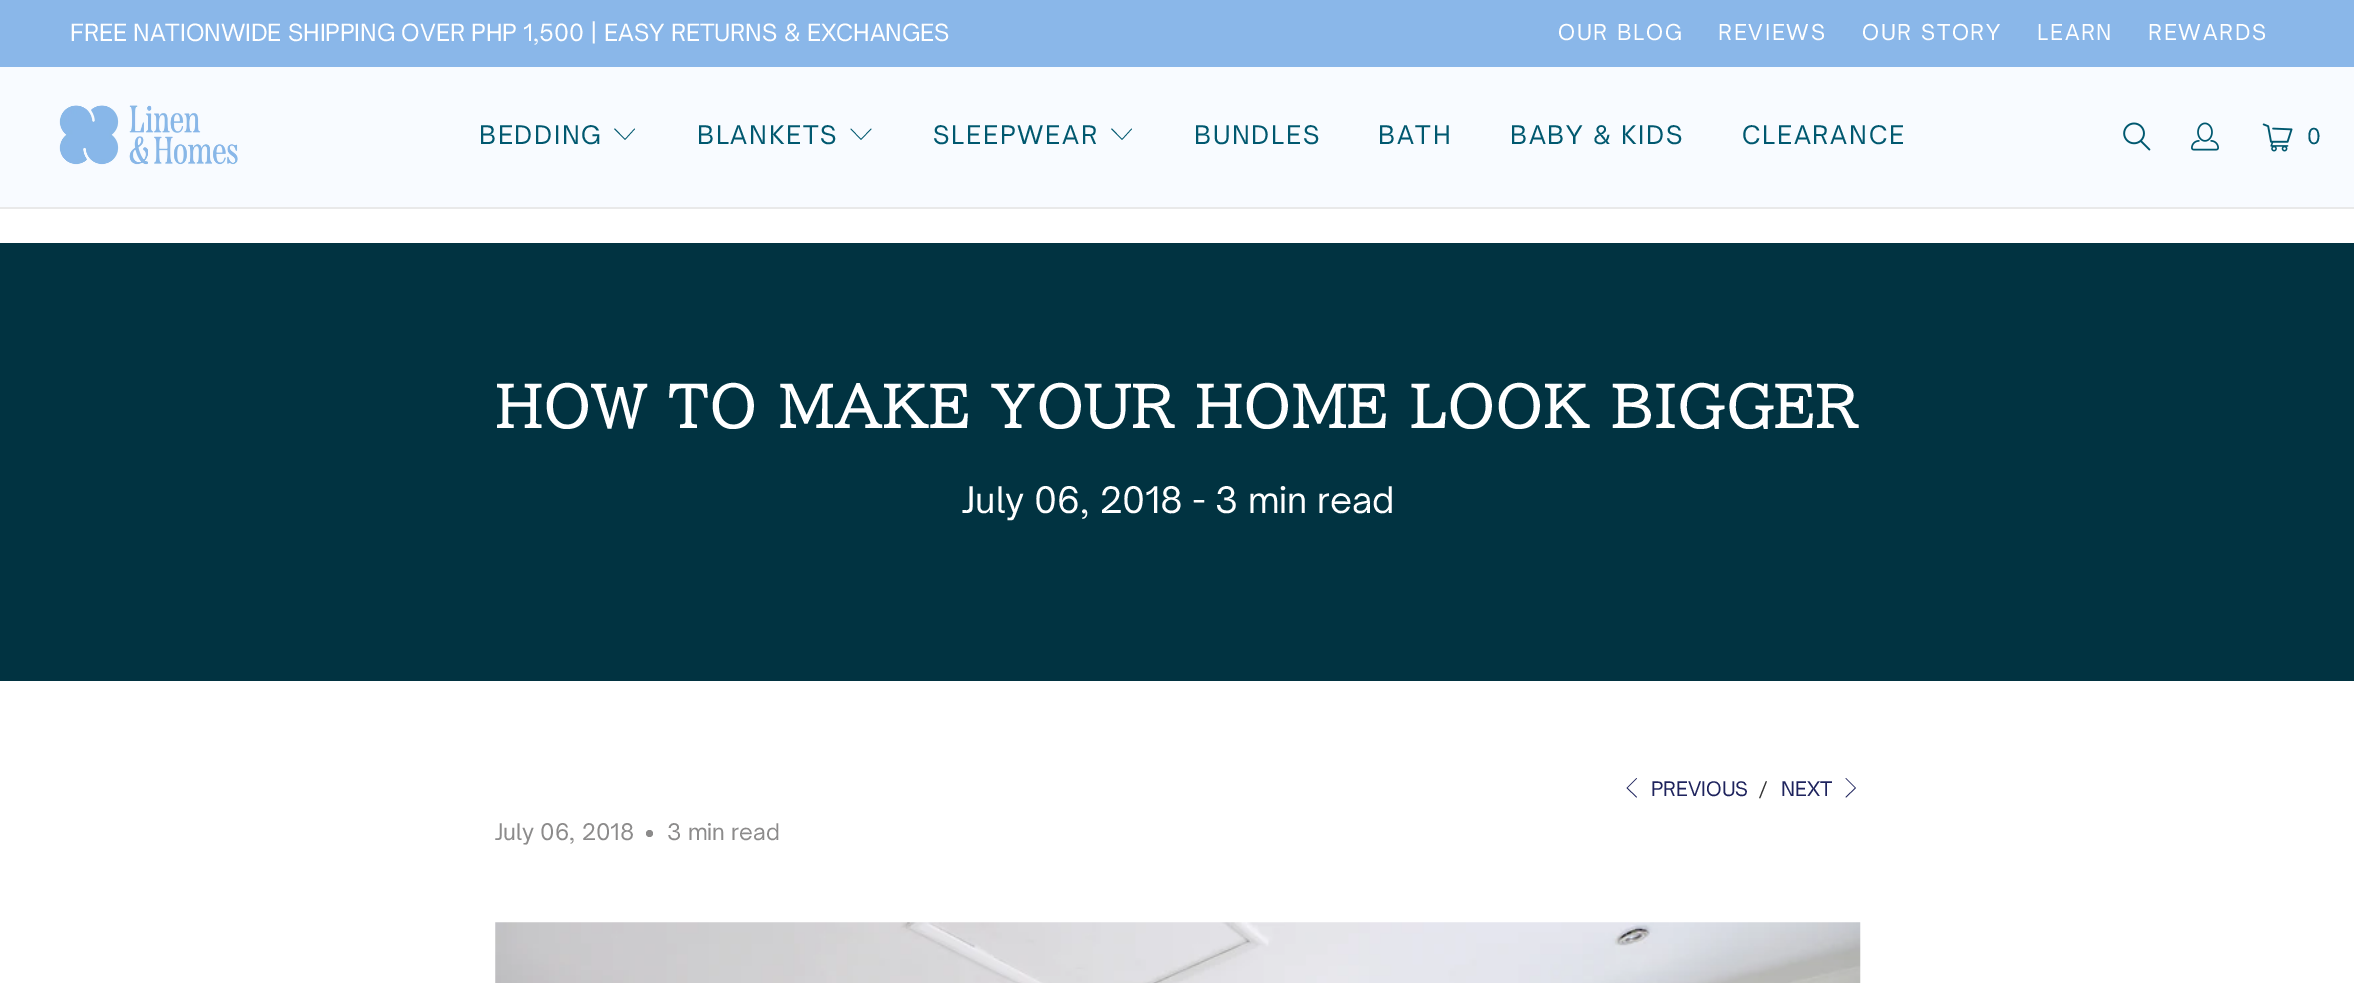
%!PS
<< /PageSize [2354 983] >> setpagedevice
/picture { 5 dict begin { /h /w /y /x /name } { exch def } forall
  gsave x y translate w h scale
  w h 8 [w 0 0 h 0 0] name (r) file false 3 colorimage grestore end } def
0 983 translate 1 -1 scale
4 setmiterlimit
1 setgray
0 0 2354 983 rectfill
0.541 0.718 0.914 setrgbcolor
0 0 2354 67 rectfill
/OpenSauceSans-Regular [22.75 0 0 -22.75 0 0] selectfont
1 setgray
70 41 moveto (FREE NATIONWIDE SHIPPING OVER PHP 1,500 | EASY RETURNS & EXCHANGES) show
/OpenSauceSans-Regular [21 0 0 -21 0 0] selectfont
1558 40 moveto 1.75 0 (OUR BLOG) ashow
1718 40 moveto 1.75 0 (REVIEWS) ashow
1862 40 moveto 1.75 0 (OUR STORY) ashow
2037 40 moveto 1.75 0 (LEARN) ashow
2148 40 moveto 1.75 0 (REWARDS) ashow
0.973 0.984 1 setrgbcolor
0 67 2354 140 rectfill
0.914 setgray
0 207 2354 2 rectfill
(img1.rgb) 59 105 179 60 picture
/OpenSauceSans-Regular [24.5 0 0 -24.5 0 0] selectfont
0 0.345 0.435 setrgbcolor
479 144 moveto 1.75 0 (BEDDING) ashow
newpath 625 140 moveto 614 129 lineto 615 128.5 lineto 625 139 lineto 634.5 128.5 lineto 635 129 lineto closepath fill
697 144 moveto 1.75 0 (BLANKETS) ashow
newpath 861 140 moveto 850.5 129 lineto 851 128.5 lineto 861 139 lineto 871 128.5 lineto 871.5 129 lineto closepath fill
933 144 moveto 1.75 0 (SLEEPWEAR) ashow
newpath 1122 140 moveto 1111 129 lineto 1112 128.5 lineto 1122 139 lineto 1131.5 128.5 lineto 1132 129 lineto closepath fill
1194 144 moveto 1.75 0 (BUNDLES) ashow
1378 144 moveto 1.75 0 (BATH) ashow
1510 144 moveto 1.75 0 (BABY & KIDS) ashow
1742 144 moveto 1.75 0 (CLEARANCE) ashow
(img2.rgb) 2123 122 28 29 picture
(img3.rgb) 2191 122 28 29 picture
(img4.rgb) 2262 123 31 29 picture
/OpenSauceSans-Regular [21 0 0 -21 0 0] selectfont
2307 144 moveto 1.75 0 (0) ashow
0.004 0.2 0.255 setrgbcolor
0 243 2354 438 rectfill
/BIZUDPMincho-Bold [56 0 0 -56 0 0] selectfont
1 setgray
496 428 moveto 1.75 0 (HOW TO MAKE YOUR HOME LOOK BIGGER) ashow
/OpenSauceSans-Regular [35 0 0 -35 0 0] selectfont
962 513 moveto (July 06, 2018 - 3 min read) show
0.118 0.137 0.365 setrgbcolor
newpath 1636.5 797.5 moveto 1626.5 788 lineto 1636.5 778 lineto 1637 778.5 lineto 1627.5 788 lineto 1637 797 lineto closepath fill
/OpenSauceSans-Regular [19.25 0 0 -19.25 0 0] selectfont
1651 796 moveto (PREVIOUS) show
0.2 setgray
1759 796 moveto (/) show
0.118 0.137 0.365 setrgbcolor
1781 796 moveto (NEXT) show
newpath 1846 797.5 moveto 1845.5 797 lineto 1855 788 lineto 1845.5 778.5 lineto 1846 778 lineto 1856 788 lineto closepath fill
/OpenSauceSans-Regular [22 0 0 -22 0 0] selectfont
0.549 0.545 0.545 setrgbcolor
495 840 moveto (July 06, 2018) show
newpath 649.5 833.5 3.5 0 360 arc closepath fill
667 840 moveto (3 min read) show
(img5.rgb) 495 922 1366 61 picture
showpage
